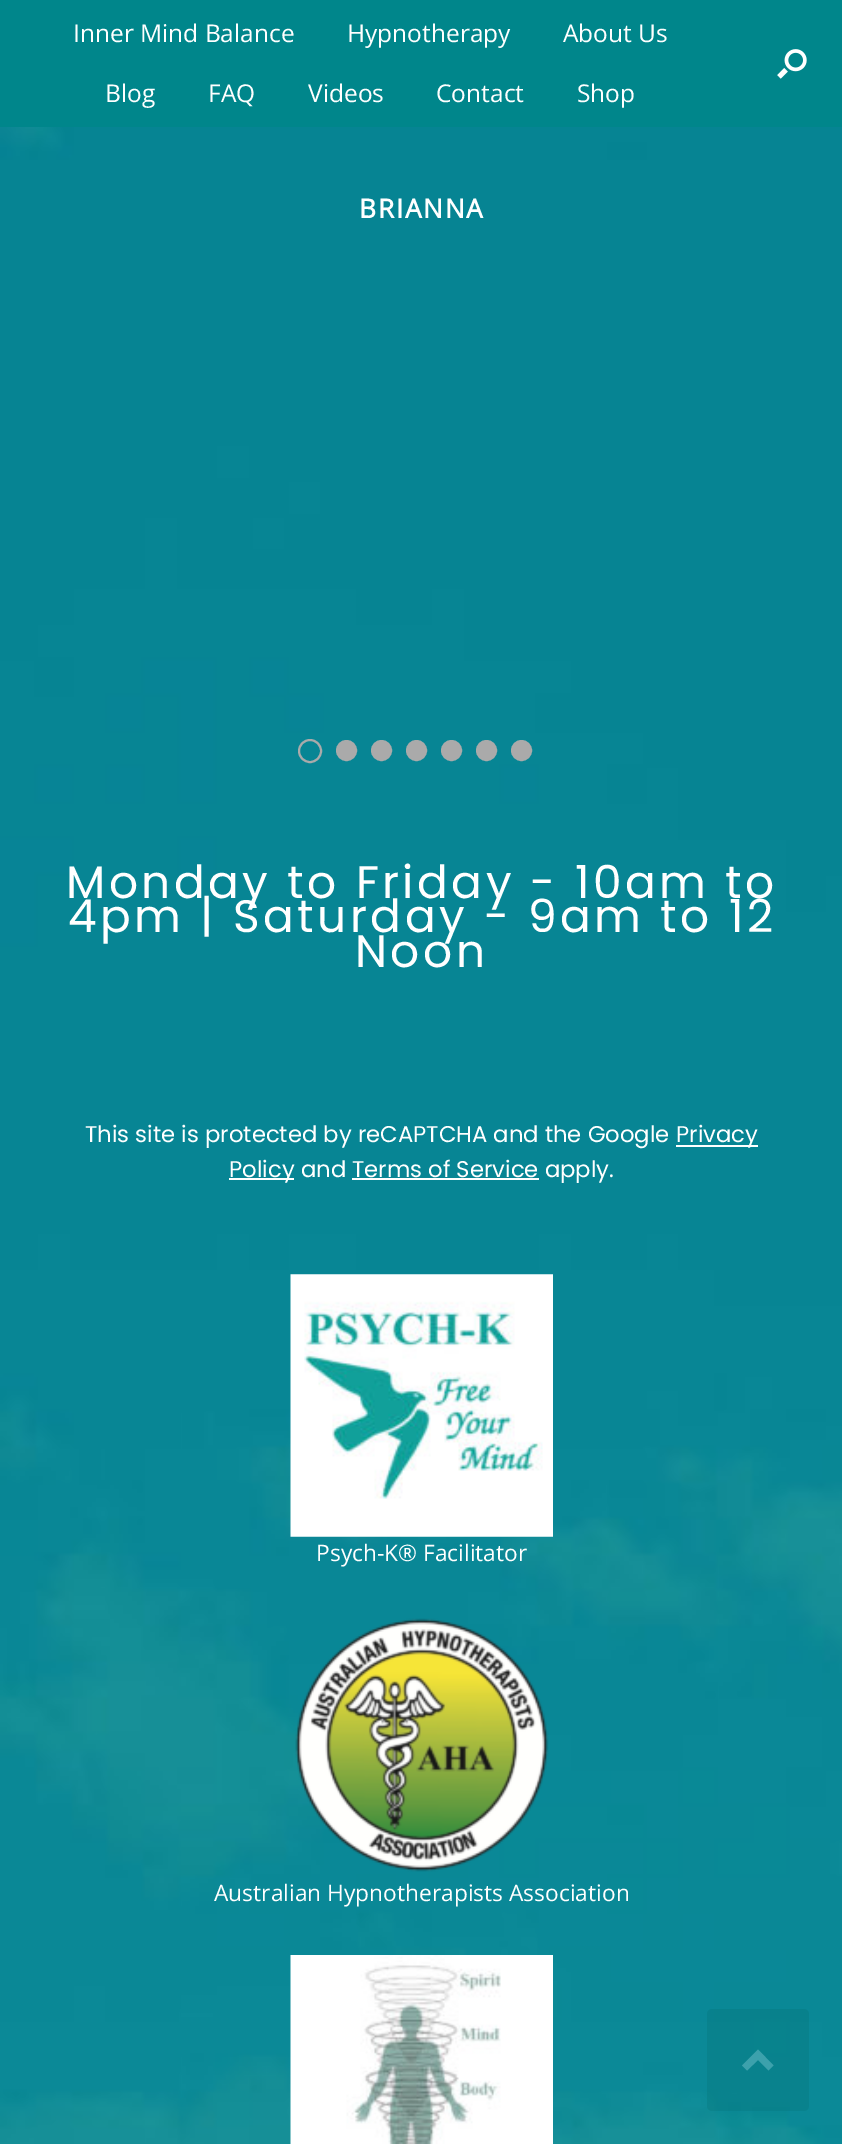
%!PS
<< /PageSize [842 2144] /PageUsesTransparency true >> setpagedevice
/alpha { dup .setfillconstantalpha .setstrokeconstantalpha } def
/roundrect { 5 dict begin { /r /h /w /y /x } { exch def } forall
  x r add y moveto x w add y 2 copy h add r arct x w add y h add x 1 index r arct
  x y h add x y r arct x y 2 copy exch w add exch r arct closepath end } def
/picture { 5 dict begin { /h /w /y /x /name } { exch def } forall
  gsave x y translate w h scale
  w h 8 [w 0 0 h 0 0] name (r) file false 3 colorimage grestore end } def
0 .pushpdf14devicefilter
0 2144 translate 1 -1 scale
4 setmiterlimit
1 setgray
0 0 842 2144 rectfill
0 0.525 0.545 setrgbcolor
0 0 842 127 rectfill
/OpenSans-Regular [24.5 0 0 -24.5 0 0] selectfont
1 setgray
73 42 moveto (Inner Mind Balance) show
347 42 moveto (Hypnotherapy) show
563 42 moveto (About Us) show
105 102 moveto (Blog) show
208 102 moveto (FAQ) show
308 102 moveto (Videos) show
436 102 moveto (Contact) show
577 102 moveto (Shop) show
(img1.rgb) 777 49 30 30 picture
(img2.rgb) 0 127 842 2017 picture
/OpenSans-Bold [26.25 0 0 -26.25 0 0] selectfont
359 218 moveto 1.75 0 (BRIANNA) ashow
0.667 setgray
2 setlinewidth
newpath 310 751 11 0 360 arc closepath stroke
newpath 346.5 750.5 9.5 0 360 arc closepath gsave fill grestore
stroke
newpath 381.5 750.5 9.5 0 360 arc closepath gsave fill grestore
stroke
newpath 416.5 750.5 9.5 0 360 arc closepath gsave fill grestore
stroke
newpath 451.5 750.5 9.5 0 360 arc closepath gsave fill grestore
stroke
newpath 486.5 750.5 9.5 0 360 arc closepath gsave fill grestore
stroke
newpath 521.5 750.5 9.5 0 360 arc closepath gsave fill grestore
stroke
/Poppins-Regular [45.5 0 0 -45.5 0 0] selectfont
1 setgray
66 898 moveto 3.5 0 (Monday to Friday - 10am to) ashow
68 932 moveto 3.5 0 (4pm | Saturday - 9am to 12) ashow
355 967 moveto 3.5 0 (Noon) ashow
/Poppins-Regular [22.75 0 0 -22.75 0 0] selectfont
85 1142 moveto (This site is protected by reCAPTCHA and the Google) show
676 1145 82 2 rectfill
676 1142 moveto (Privacy) show
229 1178 65 2 rectfill
229 1177 moveto (Policy and Terms of Service apply.) show
352 1178 187 2 rectfill
(img3.rgb) 290 1274 263 263 picture
/OpenSans-Regular [22.75 0 0 -22.75 0 0] selectfont
316 1561 moveto (Psych-K® Facilitator) show
(img4.rgb) 295 1618 254 254 picture
214 1901 moveto (Australian Hypnotherapists Association) show
(img5.rgb) 290 1955 263 189 picture
0.2 alpha
0 0.4 0.4 setrgbcolor
707 2009 102 102 5 roundrect fill
1 alpha
0.235 0.631 0.675 setrgbcolor
newpath 773.5 2065.5 moveto 758 2049.5 lineto 742 2065.5 lineto 747 2070.5 lineto 758 2060 lineto 768.5 2070.5 lineto closepath fill
.poppdf14devicefilter showpage
